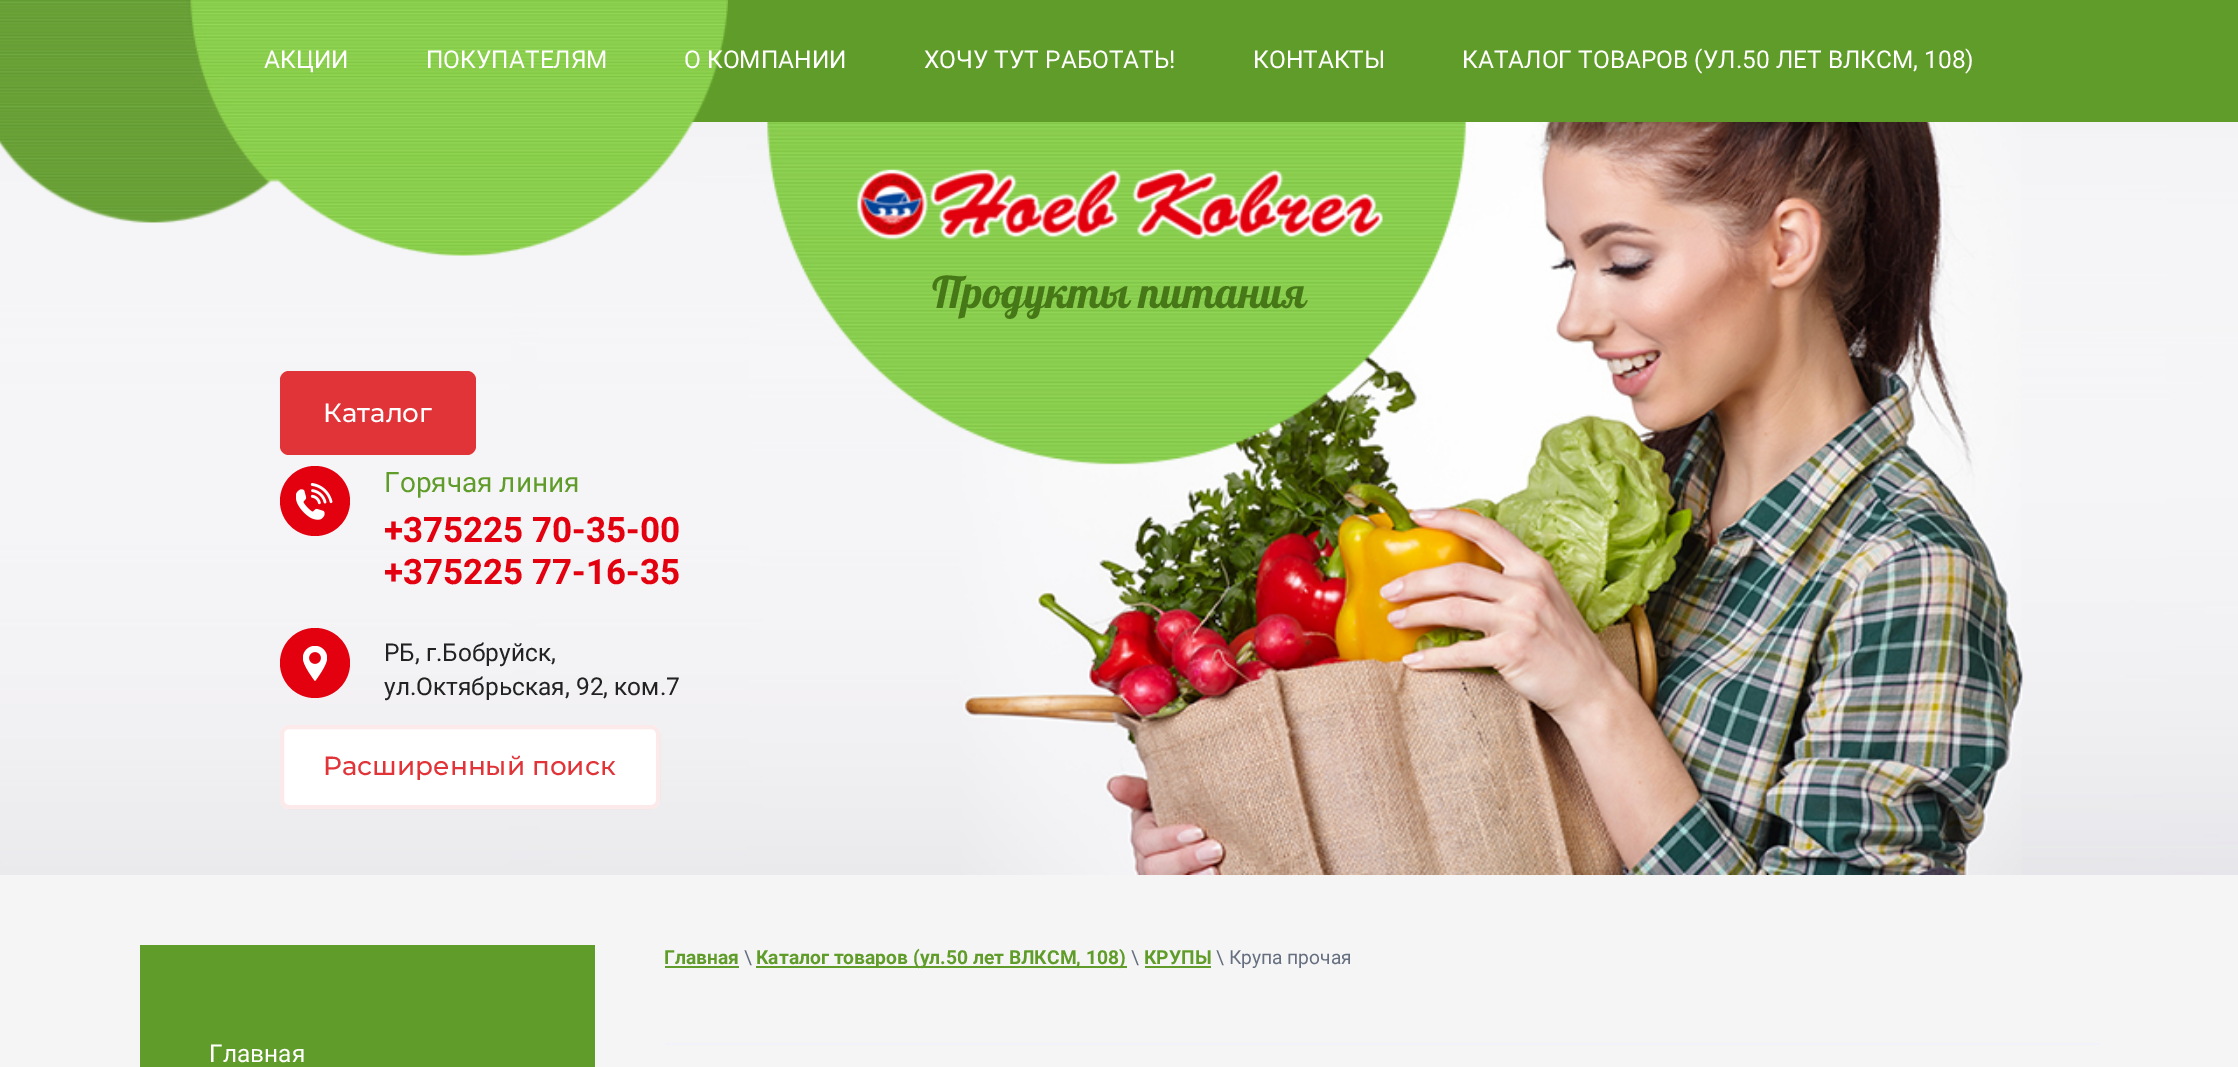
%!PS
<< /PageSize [2238 1067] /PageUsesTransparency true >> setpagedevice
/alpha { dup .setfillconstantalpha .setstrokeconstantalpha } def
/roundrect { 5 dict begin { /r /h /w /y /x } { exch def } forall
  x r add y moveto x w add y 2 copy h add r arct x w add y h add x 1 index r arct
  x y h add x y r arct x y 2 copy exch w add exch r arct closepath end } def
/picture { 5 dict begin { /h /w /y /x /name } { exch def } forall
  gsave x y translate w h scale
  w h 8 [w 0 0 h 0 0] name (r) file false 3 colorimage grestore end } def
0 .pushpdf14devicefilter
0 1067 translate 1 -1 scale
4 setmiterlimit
0.961 setgray
0 0 2238 1067 rectfill
(img1.rgb) 0 122 2238 753 picture
(img2.rgb) 0 0 2238 256 picture
/Roboto-Regular [24.5 0 0 -24.5 0 0] selectfont
1 setgray
264 68 moveto (АКЦИИ) show
426 68 moveto (ПОКУПАТЕЛЯМ) show
684 68 moveto (О КОМПАНИИ) show
924 68 moveto (ХОЧУ ТУТ РАБОТАТЬ!) show
1253 68 moveto (КОНТАКТЫ) show
1462 68 moveto (КАТАЛОГ ТОВАРОВ \(УЛ.50 ЛЕТ ВЛКСМ, 108\)) show
(img3.rgb) 857 169 526 71 picture
/Lobster-Regular [43.75 0 0 -43.75 0 0] selectfont
0.275 0.471 0.09 setrgbcolor
932 308 moveto (Продукты питания) show
0.882 0.204 0.224 setrgbcolor
280 371 196 84 9 roundrect fill
/Montserrat-Medium [26.25 0 0 -26.25 0 0] selectfont
1 setgray
323 422 moveto (Каталог) show
0.89 0 0.059 setrgbcolor
newpath 315 501 35 0 360 arc closepath fill
(img4.rgb) 296 483 37 37 picture
/Roboto-Regular [28 0 0 -28 0 0] selectfont
0.376 0.612 0.165 setrgbcolor
384 492 moveto (Горячая линия) show
/Roboto-Bold [35 0 0 -35 0 0] selectfont
0.89 0 0.059 setrgbcolor
384 542 moveto (+375225 70-35-00) show
384 584 moveto (+375225 77-16-35) show
newpath 315 663 35 0 360 arc closepath fill
(img5.rgb) 303 646 24 35 picture
/Roboto-Regular [24.5 0 0 -24.5 0 0] selectfont
0.133 setgray
384 661 moveto (РБ, г.Бобруйск,) show
384 695 moveto (ул.Октябрьская, 92, ком.7) show
1 setgray
280 725 380 84 9 roundrect fill
0.1 alpha
0.882 0.204 0.224 setrgbcolor
4 setlinewidth
282 727 376 80 7 roundrect stroke
/Montserrat-Medium [26.25 0 0 -26.25 0 0] selectfont
1 alpha
323 775 moveto (Расширенный поиск) show
0.949 0.949 0.98 setrgbcolor
665 1043 1435 2 rectfill
/Roboto-Bold [19.25 0 0 -19.25 0 0] selectfont
0.376 0.612 0.165 setrgbcolor
664 964 moveto (Главная) show
665 966 74 2 rectfill
/Roboto-Regular [19.25 0 0 -19.25 0 0] selectfont
0.4 0.435 0.502 setrgbcolor
744 964 moveto (\\) show
0.376 0.612 0.165 setrgbcolor
756 966 371 2 rectfill
/Roboto-Bold [19.25 0 0 -19.25 0 0] selectfont
756 964 moveto (Каталог товаров \(ул.50 лет ВЛКСМ, 108\)) show
/Roboto-Regular [19.25 0 0 -19.25 0 0] selectfont
0.4 0.435 0.502 setrgbcolor
1131 964 moveto (\\) show
/Roboto-Bold [19.25 0 0 -19.25 0 0] selectfont
0.376 0.612 0.165 setrgbcolor
1144 964 moveto (КРУПЫ) show
1145 966 66 2 rectfill
/Roboto-Regular [19.25 0 0 -19.25 0 0] selectfont
0.4 0.435 0.502 setrgbcolor
1216 964 moveto (\\ Крупа прочая) show
0.376 0.612 0.165 setrgbcolor
140 945 455 122 rectfill
/Roboto-Regular [24.5 0 0 -24.5 0 0] selectfont
1 setgray
209 1062 moveto (Главная) show
.poppdf14devicefilter showpage
